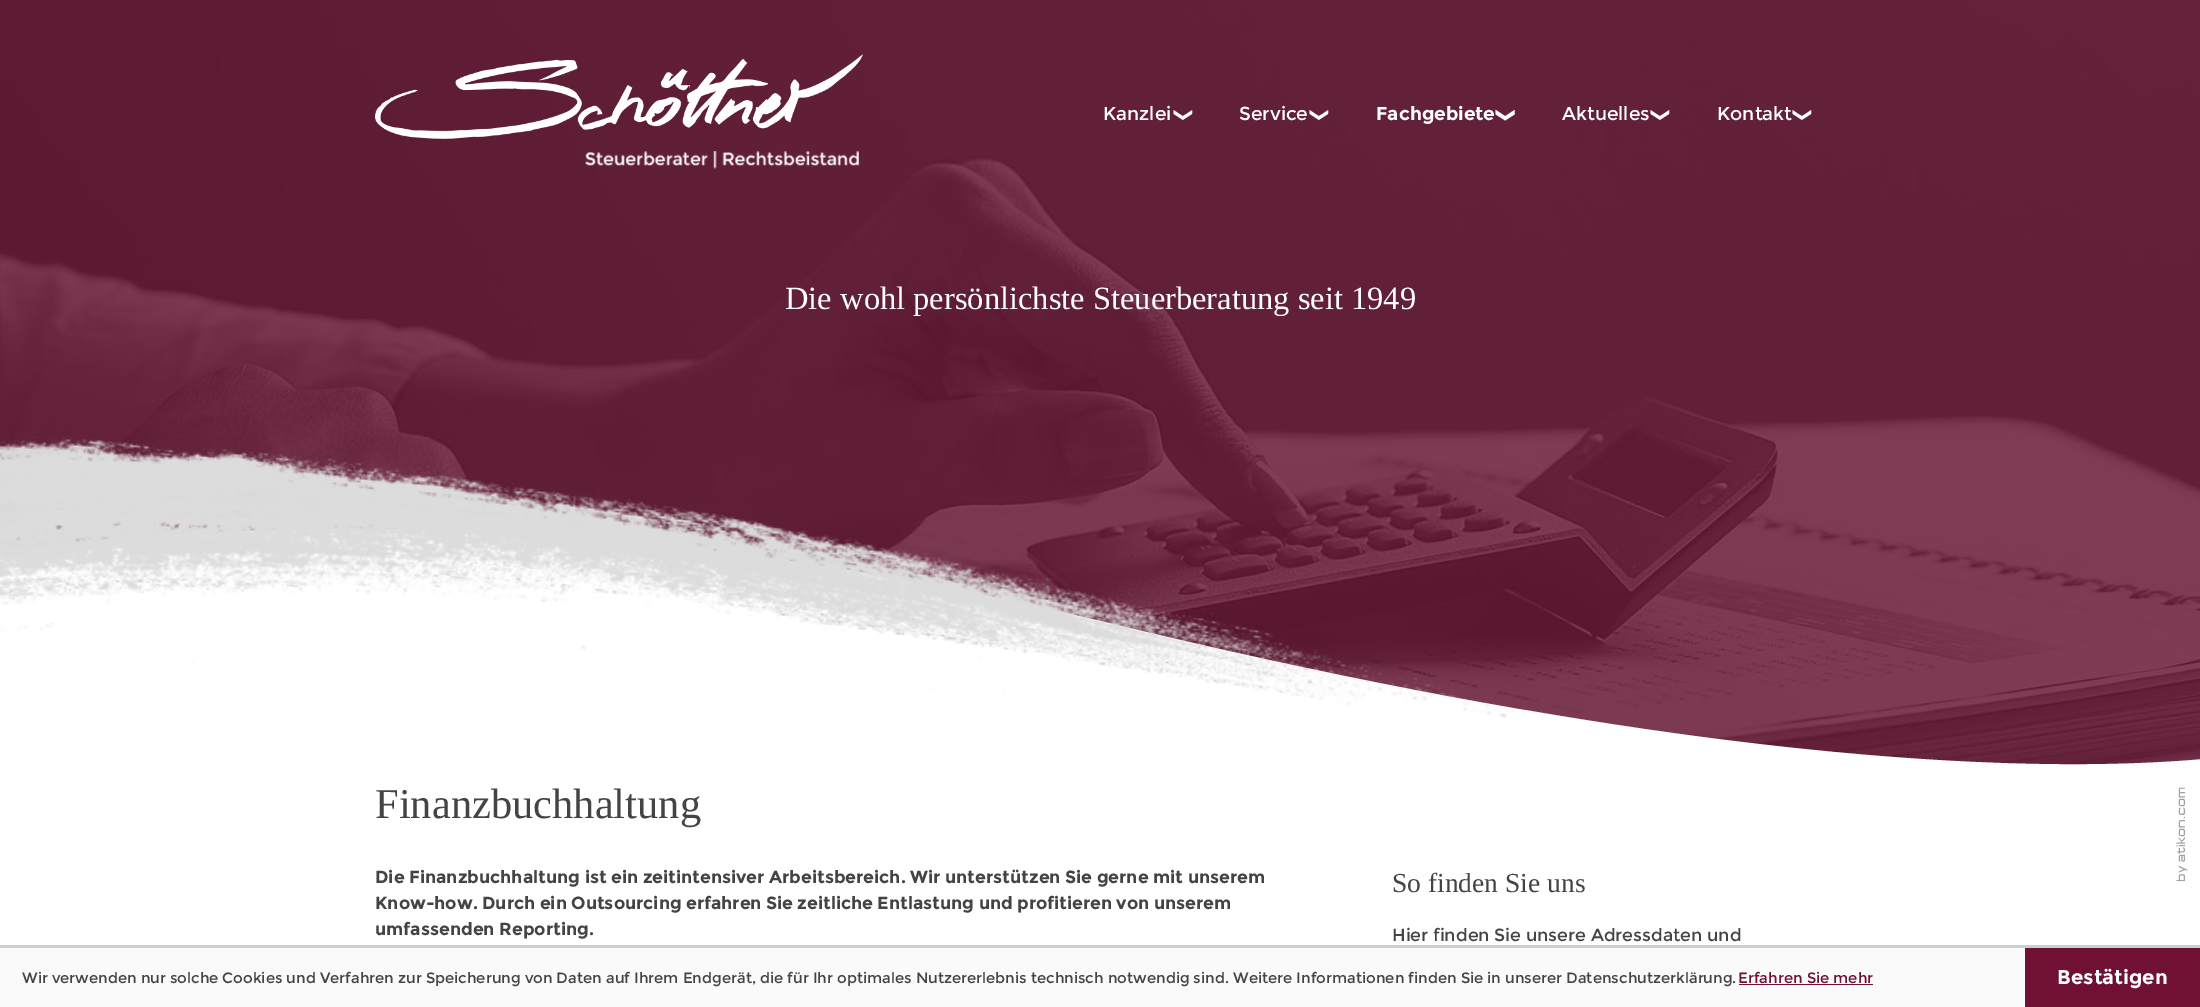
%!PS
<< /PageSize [2200 1007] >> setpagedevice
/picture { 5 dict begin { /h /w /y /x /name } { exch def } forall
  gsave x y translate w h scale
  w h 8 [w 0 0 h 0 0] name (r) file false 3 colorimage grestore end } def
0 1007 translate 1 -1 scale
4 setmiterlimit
1 setgray
0 0 2200 1007 rectfill
(img1.rgb) 0 0 2200 765 picture
(img2.rgb) 375 54 488 115 picture
/Montserrat-Regular [18.75 0 0 -18.75 0 0] selectfont
1103 120 moveto (Kanzlei) show
/DejaVuSans-Regular [18.75 0 0 -18.75 0 0] selectfont
gsave 1178 107 translate 90 rotate 0 0 moveto (❯) show grestore
/Montserrat-Regular [18.75 0 0 -18.75 0 0] selectfont
1239 120 moveto (Service) show
/DejaVuSans-Regular [18.75 0 0 -18.75 0 0] selectfont
gsave 1314 107 translate 90 rotate 0 0 moveto (❯) show grestore
/Montserrat-Bold [18.75 0 0 -18.75 0 0] selectfont
1376 120 moveto (Fachgebiete) show
/DejaVuSans-Bold [18.75 0 0 -18.75 0 0] selectfont
gsave 1500 107 translate 90 rotate 0 0 moveto (❯) show grestore
/Montserrat-Regular [18.75 0 0 -18.75 0 0] selectfont
1562 120 moveto (Aktuelles) show
/DejaVuSans-Regular [18.75 0 0 -18.75 0 0] selectfont
gsave 1655 107 translate 90 rotate 0 0 moveto (❯) show grestore
/Montserrat-Regular [18.75 0 0 -18.75 0 0] selectfont
1717 120 moveto (Kontakt) show
/DejaVuSans-Regular [18.75 0 0 -18.75 0 0] selectfont
gsave 1797 107 translate 90 rotate 0 0 moveto (❯) show grestore
/Tinos-Regular [32.5 0 0 -32.5 0 0] selectfont
785 309 moveto (Die wohl persönlichste Steuerberatung seit 1949) show
gsave
0 508 2200 267 rectclip
newpath 1105 622 moveto 369 444 -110 575 -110 575 curveto -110 780 lineto 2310 780 lineto 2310 742 lineto 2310 742 2007 841 1105 622 curveto closepath fill
grestore
(img3.rgb) 0 436 1525 302 picture
/Tinos-Regular [42.5 0 0 -42.5 0 0] selectfont
0.267 setgray
375 818 moveto (Finanzbuchhaltung) show
/Montserrat-Bold [17.5 0 0 -17.5 0 0] selectfont
375 883 moveto (Die Finanzbuchhaltung ist ein zeitintensiver Arbeitsbereich. Wir unterstützen Sie gerne mit unserem) show
375 909 moveto -0.25 0 32 (Know-how. Durch ein Outsourcing erfahren Sie zeitliche Entlastung und profitieren von unserem) widthshow
375 935 moveto (umfassenden Reporting.) show
/Tinos-Regular [27.5 0 0 -27.5 0 0] selectfont
1392 892 moveto (So finden Sie uns) show
/Montserrat-Regular [17.5 0 0 -17.5 0 0] selectfont
1392 941 moveto (Hier finden Sie unsere Adressdaten und) show
(img4.rgb) 2176 787 12 95 picture
0.98 setgray
0 948 2025 59 rectfill
0.788 0.816 0.831 setrgbcolor
0 945 2200 3 rectfill
/Montserrat-Regular [14.88 0 0 -14.88 0 0] selectfont
0.267 setgray
22 983 moveto (Wir verwenden nur solche Cookies und Verfahren zur Speicherung von Daten auf Ihrem Endgerät, die für Ihr optimales Nutzererlebnis technisch notwendig sind. Weitere Informationen finden Sie in unserer Datenschutzerklärung.) show
0.435 0.063 0.204 setrgbcolor
1738 983 moveto (Erfahren Sie mehr) show
1739 984 134 1 rectfill
2025 948 175 59 rectfill
/Montserrat-Bold [20 0 0 -20 0 0] selectfont
1 setgray
2057 984 moveto (Bestätigen) show
showpage
